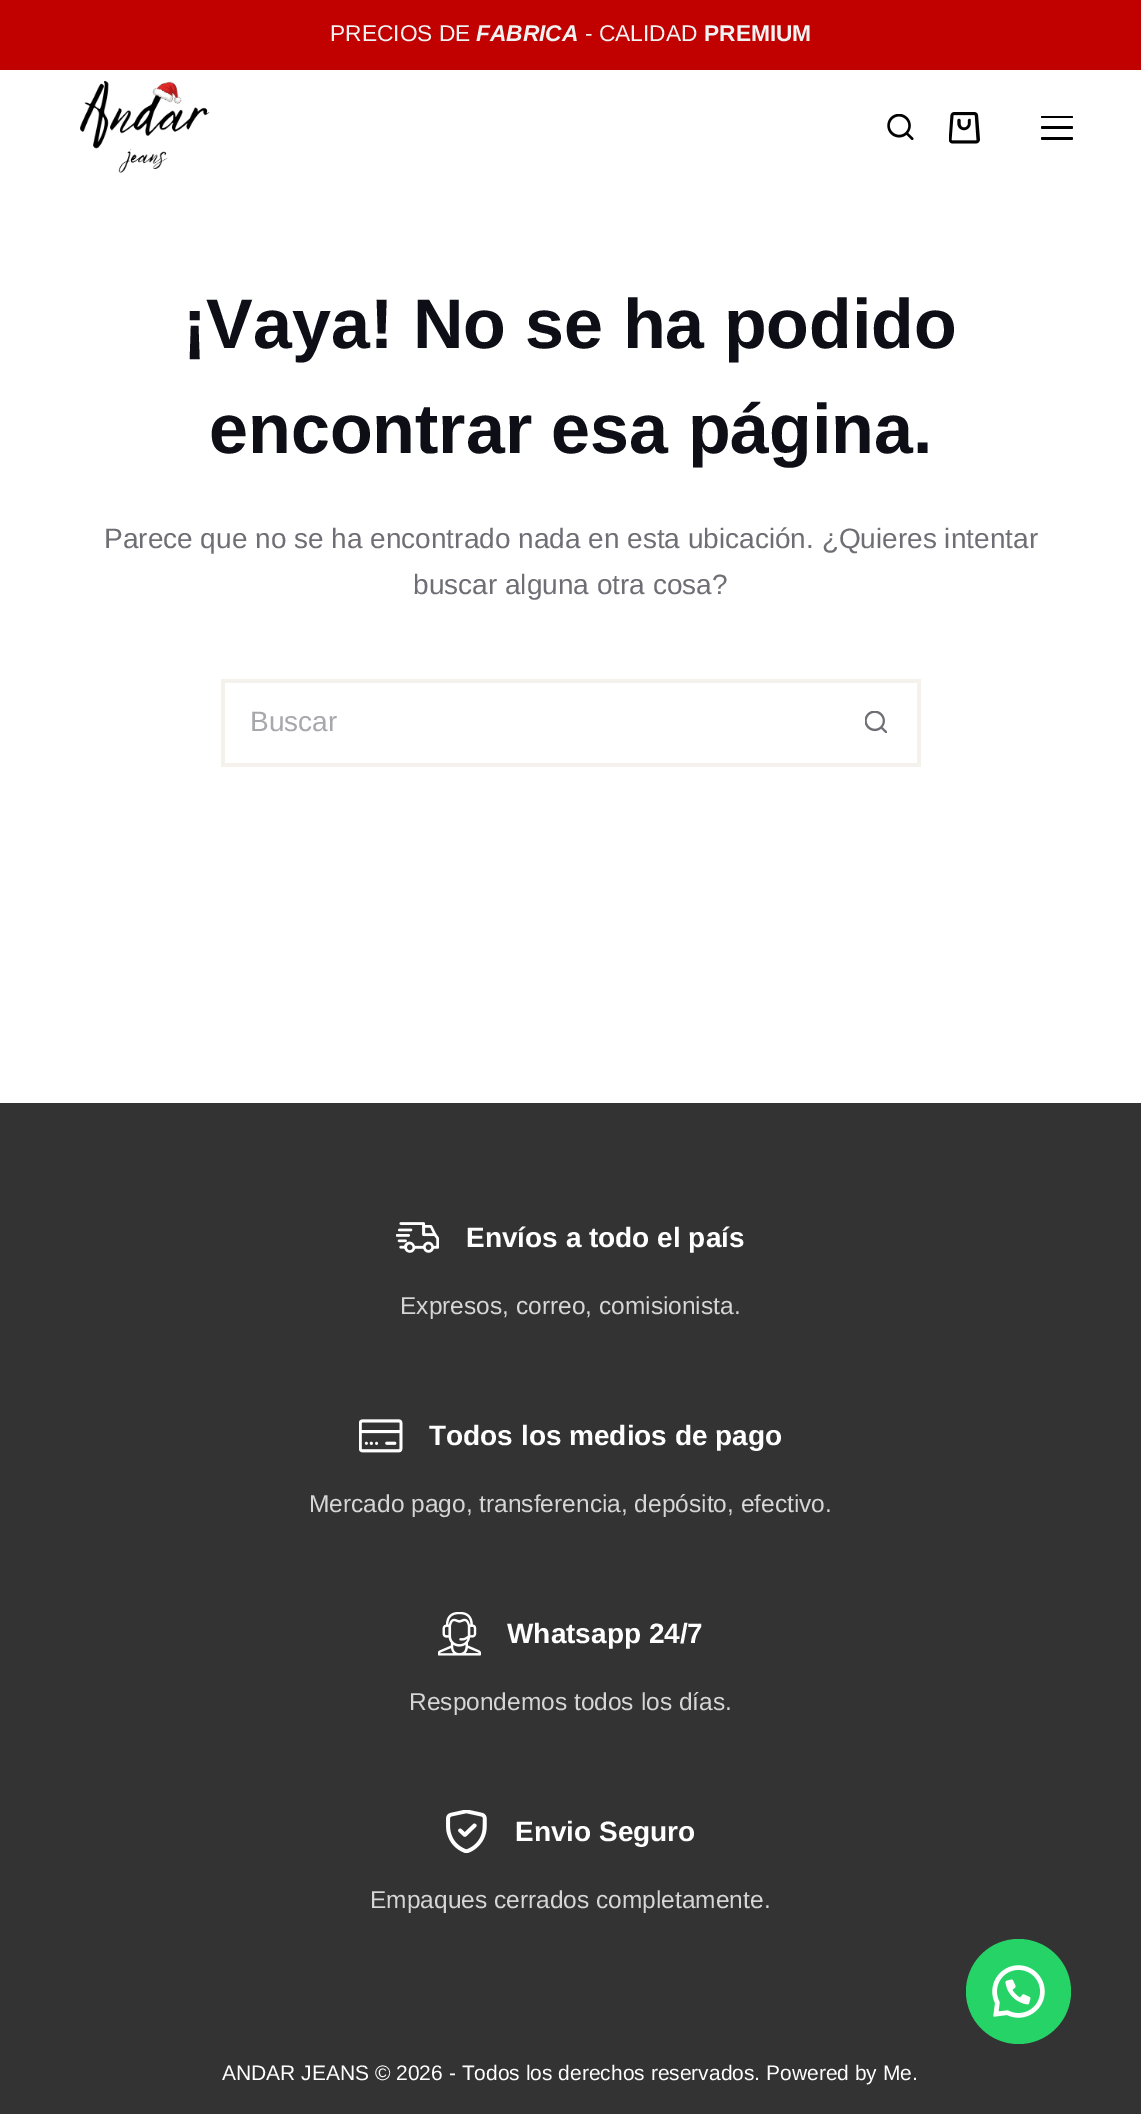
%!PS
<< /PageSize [1141 2114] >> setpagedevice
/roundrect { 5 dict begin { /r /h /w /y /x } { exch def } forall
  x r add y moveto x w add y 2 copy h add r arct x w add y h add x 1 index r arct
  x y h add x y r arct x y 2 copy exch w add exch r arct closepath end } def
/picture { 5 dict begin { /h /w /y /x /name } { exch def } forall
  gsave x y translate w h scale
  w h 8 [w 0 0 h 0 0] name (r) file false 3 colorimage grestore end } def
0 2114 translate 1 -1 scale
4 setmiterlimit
1 setgray
0 0 1141 2114 rectfill
0.757 0 0 setrgbcolor
0 0 1141 70 rectfill
/LiberationSans-Regular [22.75 0 0 -22.75 0 0] selectfont
0.949 setgray
330 41 moveto (PRECIOS DE) show
/LiberationSans-BoldItalic [22.75 0 0 -22.75 0 0] selectfont
476 41 moveto (FABRICA) show
/LiberationSans-Regular [22.75 0 0 -22.75 0 0] selectfont
585 41 moveto (- CALIDAD) show
/LiberationSans-Bold [22.75 0 0 -22.75 0 0] selectfont
704 41 moveto (PREMIUM) show
(img1.rgb) 80 81 130 92 picture
(img2.rgb) 887 114 27 26 picture
(img3.rgb) 949 112 31 32 picture
0 setgray
1041 116 32 2 1 roundrect fill
1041 126 32 3 1.5 roundrect fill
1041 137 32 3 1.5 roundrect fill
/LiberationSans-Bold [70 0 0 -70 0 0] selectfont
0.051 0.055 0.086 setrgbcolor
183 348 moveto (¡Vaya! No se ha podido) show
209 453 moveto (encontrar esa página.) show
/LiberationSans-Regular [28 0 0 -28 0 0] selectfont
0.431 0.431 0.459 setrgbcolor
104 548 moveto (Parece que no se ha encontrado nada en esta ubicación. ¿Quieres intentar) show
413 594 moveto (buscar alguna otra cosa?) show
0.961 0.949 0.933 setrgbcolor
221 679 700 4 rectfill
221 763 612 4 rectfill
221 679 4 88 rectfill
0.659 0.659 0.675 setrgbcolor
250 731 moveto (Buscar) show
0.961 0.949 0.933 setrgbcolor
917 679 4 88 rectfill
833 763 88 4 rectfill
(img4.rgb) 865 711 22 22 picture
0.2 setgray
0 1103 1141 1011 rectfill
(img5.rgb) 396 1222 43 31 picture
/LiberationSans-Bold [28 0 0 -28 0 0] selectfont
1 setgray
466 1247 moveto (Envíos a todo el país) show
/LiberationSans-Regular [24.5 0 0 -24.5 0 0] selectfont
0.839 setgray
400 1314 moveto (Expresos, correo, comisionista.) show
(img6.rgb) 359 1419 44 34 picture
/LiberationSans-Bold [28 0 0 -28 0 0] selectfont
1 setgray
429 1445 moveto (Todos los medios de pago) show
/LiberationSans-Regular [24.5 0 0 -24.5 0 0] selectfont
0.839 setgray
309 1512 moveto (Mercado pago, transferencia, depósito, efectivo.) show
(img7.rgb) 438 1612 43 44 picture
/LiberationSans-Bold [28 0 0 -28 0 0] selectfont
1 setgray
507 1643 moveto (Whatsapp 24/7) show
/LiberationSans-Regular [24.5 0 0 -24.5 0 0] selectfont
0.839 setgray
409 1710 moveto (Respondemos todos los días.) show
(img8.rgb) 446 1810 41 43 picture
/LiberationSans-Bold [28 0 0 -28 0 0] selectfont
1 setgray
515 1841 moveto (Envio Seguro) show
/LiberationSans-Regular [24.5 0 0 -24.5 0 0] selectfont
0.839 setgray
370 1908 moveto (Empaques cerrados completamente.) show
/LiberationSans-Regular [21 0 0 -21 0 0] selectfont
1 setgray
222 2080 moveto (ANDAR JEANS © 2026 - Todos los derechos reservados. Powered by Me.) show
0.145 0.827 0.4 setrgbcolor
newpath 1018.5 1991.5 52.5 0 360 arc closepath fill
(img9.rgb) 992 1965 53 53 picture
showpage
